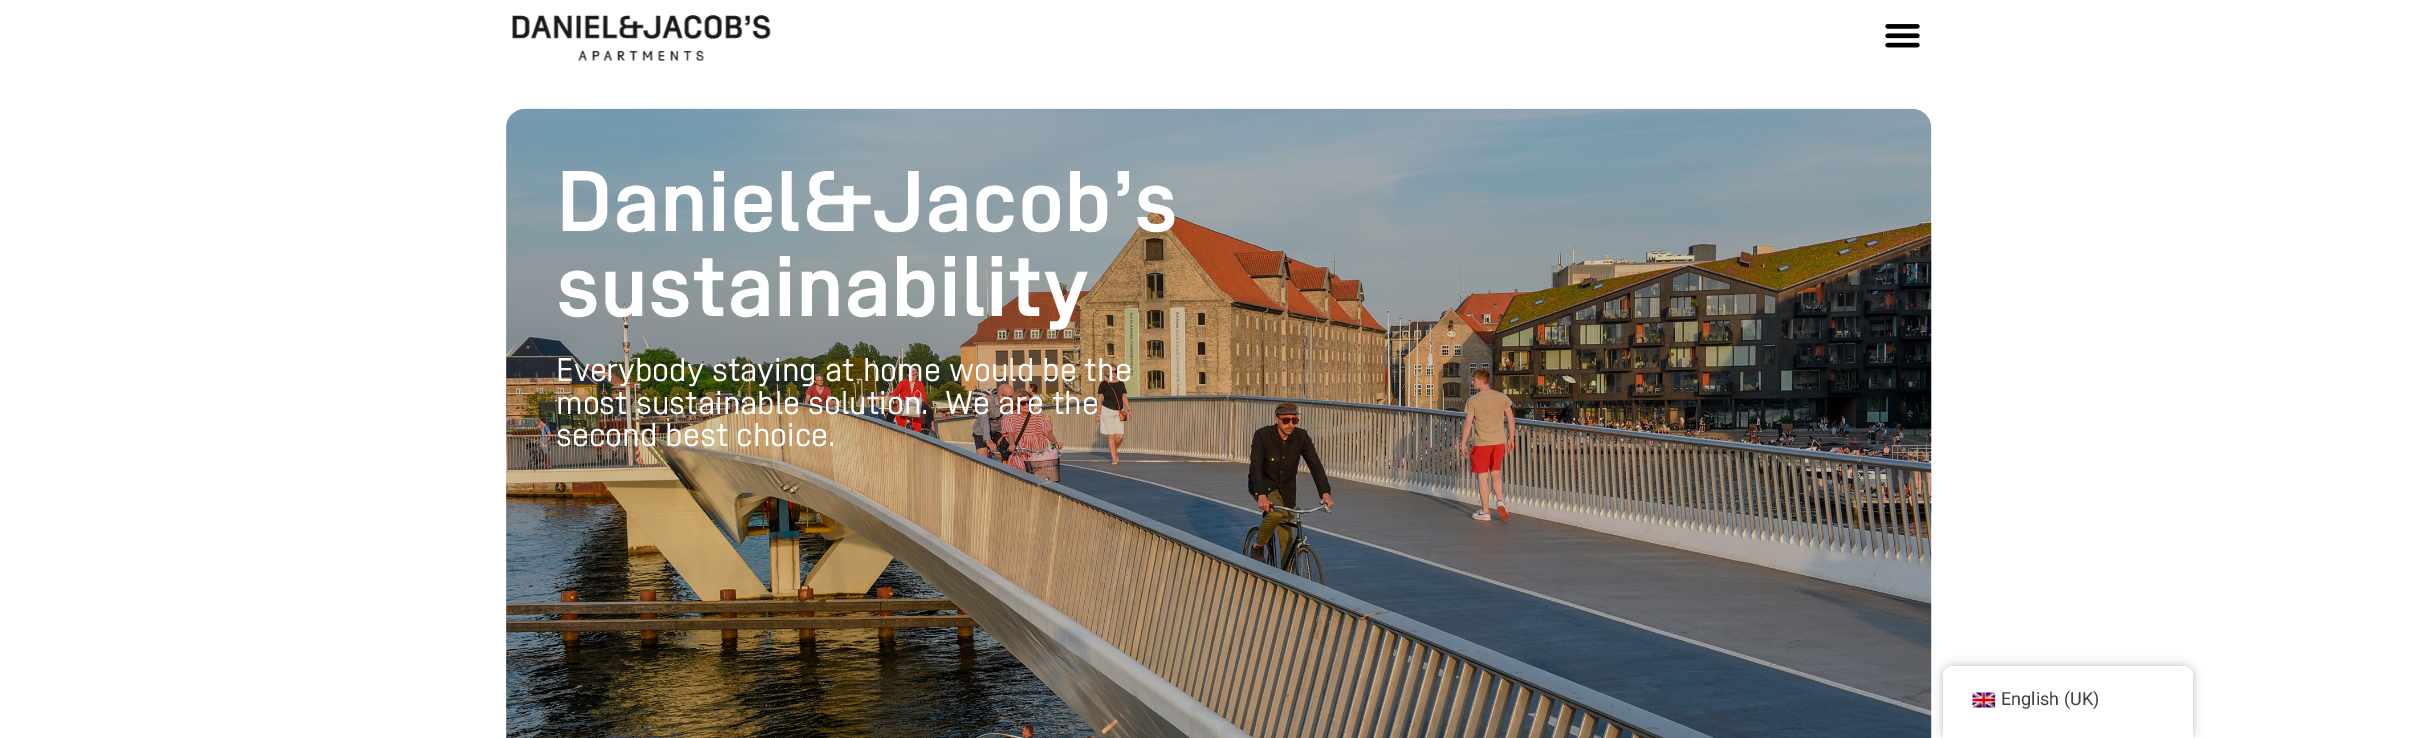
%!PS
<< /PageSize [2436 738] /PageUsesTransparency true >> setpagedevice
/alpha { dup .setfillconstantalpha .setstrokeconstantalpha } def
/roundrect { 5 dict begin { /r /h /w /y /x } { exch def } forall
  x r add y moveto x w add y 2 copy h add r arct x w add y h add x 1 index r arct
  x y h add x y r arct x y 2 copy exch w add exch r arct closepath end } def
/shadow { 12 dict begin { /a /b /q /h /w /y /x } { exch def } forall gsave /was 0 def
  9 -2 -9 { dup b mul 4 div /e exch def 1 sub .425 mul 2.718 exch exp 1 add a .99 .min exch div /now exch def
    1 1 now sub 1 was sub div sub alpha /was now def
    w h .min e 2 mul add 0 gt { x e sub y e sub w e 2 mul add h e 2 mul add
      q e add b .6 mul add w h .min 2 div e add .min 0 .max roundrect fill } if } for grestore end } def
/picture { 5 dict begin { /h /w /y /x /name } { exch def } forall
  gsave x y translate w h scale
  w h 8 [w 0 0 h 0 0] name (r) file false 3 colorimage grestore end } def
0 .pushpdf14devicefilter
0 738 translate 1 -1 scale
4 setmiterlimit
1 setgray
0 0 2436 738 rectfill
(img1.rgb) 512 15 259 46 picture
(img2.rgb) 1885 24 35 24 picture
(img3.rgb) 506 108 1426 630 picture
0.2 alpha
0 setgray
506 109 1425 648 19 roundrect fill
/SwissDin-Medium [85 0 0 -85 0 0] selectfont
1 alpha
1 setgray
556 231 moveto (Daniel&Jacob’s) show
556 316 moveto (sustainability) show
/SwissDin-Light [32.5 0 0 -32.5 0 0] selectfont
556 381 moveto (Everybody staying at home would be the) show
556 414 moveto (most sustainable solution.  We are the) show
556 446 moveto (second best choice.) show
0 setgray
1943 666 250 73 10 5 0.25 shadow
1 setgray
newpath 1953 666 moveto 2183 666 lineto 2188.5 666 2193 670.5 2193 676 curveto 2193 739 lineto 1943 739 lineto 1943 676 lineto 1943 670.5 1947.5 666 1953 666 curveto closepath fill
(img4.rgb) 1972 692 24 16 picture
/Roboto-Regular [18 0 0 -18 0 0] selectfont
0.251 setgray
2001 705 moveto (English \(UK\)) show
.poppdf14devicefilter showpage
